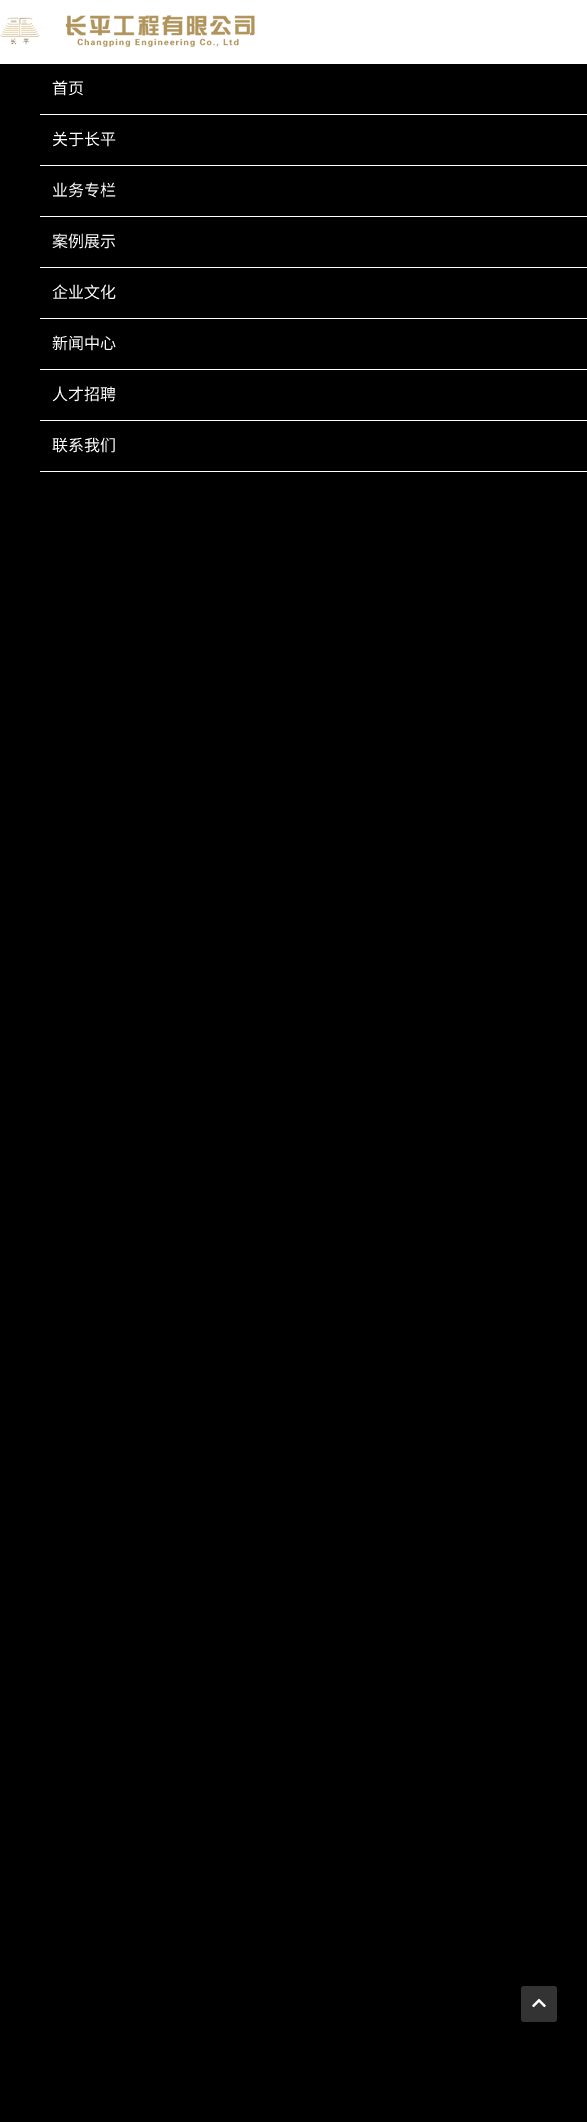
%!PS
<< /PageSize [587 2122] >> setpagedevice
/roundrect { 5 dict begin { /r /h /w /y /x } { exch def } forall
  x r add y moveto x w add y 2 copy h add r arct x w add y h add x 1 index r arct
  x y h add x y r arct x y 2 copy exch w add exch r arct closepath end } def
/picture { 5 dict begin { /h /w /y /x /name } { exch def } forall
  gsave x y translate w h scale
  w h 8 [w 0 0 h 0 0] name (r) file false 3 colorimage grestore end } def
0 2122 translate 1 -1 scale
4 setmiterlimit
1 setgray
0 0 587 2122 rectfill
(img1.rgb) 0 15 255 32 picture
0 setgray
0 64 587 2058 rectfill
1 setgray
40 114 547 1 rectfill
/NotoSansCJKSC-Regular [16 0 0 -16 0 0] selectfont
52 94 moveto (首页) show
40 165 547 1 rectfill
52 145 moveto (关于长平) show
40 216 547 1 rectfill
52 196 moveto (业务专栏) show
40 267 547 1 rectfill
52 247 moveto (案例展示) show
40 318 547 1 rectfill
52 298 moveto (企业文化) show
40 369 547 1 rectfill
52 349 moveto (新闻中心) show
40 420 547 1 rectfill
52 400 moveto (人才招聘) show
40 471 547 1 rectfill
52 451 moveto (联系我们) show
0.2 setgray
521 1986 36 36 3 roundrect fill
(img2.rgb) 532 1998 14 10 picture
showpage
